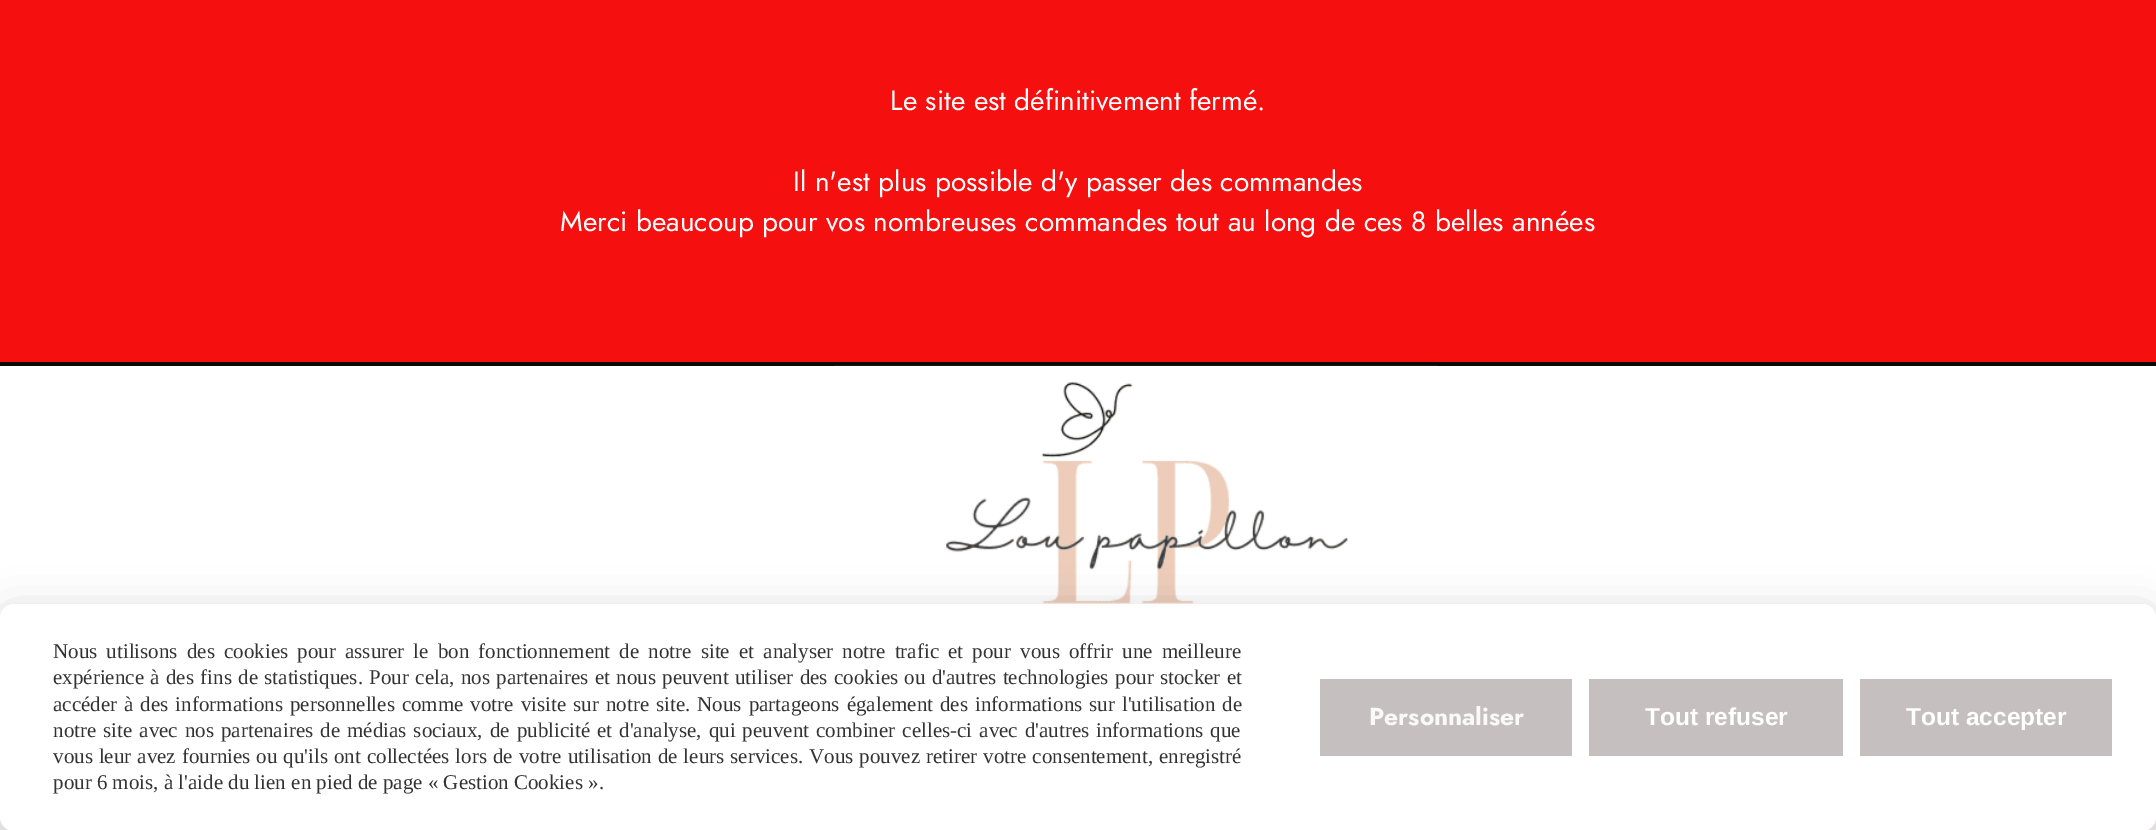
%!PS
<< /PageSize [2156 830] /PageUsesTransparency true >> setpagedevice
/alpha { dup .setfillconstantalpha .setstrokeconstantalpha } def
/roundrect { 5 dict begin { /r /h /w /y /x } { exch def } forall
  x r add y moveto x w add y 2 copy h add r arct x w add y h add x 1 index r arct
  x y h add x y r arct x y 2 copy exch w add exch r arct closepath end } def
/shadow { 12 dict begin { /a /b /q /h /w /y /x } { exch def } forall gsave /was 0 def
  9 -2 -9 { dup b mul 4 div /e exch def 1 sub .425 mul 2.718 exch exp 1 add a .99 .min exch div /now exch def
    1 1 now sub 1 was sub div sub alpha /was now def
    w h .min e 2 mul add 0 gt { x e sub y e sub w e 2 mul add h e 2 mul add
      q e add b .6 mul add w h .min 2 div e add .min 0 .max roundrect fill } if } for grestore end } def
/picture { 5 dict begin { /h /w /y /x /name } { exch def } forall
  gsave x y translate w h scale
  w h 8 [w 0 0 h 0 0] name (r) file false 3 colorimage grestore end } def
0 .pushpdf14devicefilter
0 830 translate 1 -1 scale
4 setmiterlimit
1 setgray
0 0 2156 830 rectfill
0.965 0.059 0.059 setrgbcolor
0 0 2156 362 rectfill
0.039 0.035 0.035 setrgbcolor
0 362 2156 4 rectfill
/Jost-Regular [28 0 0 -28 0 0] selectfont
1 setgray
890 110 moveto (Le site est définitivement fermé.) show
793 191 moveto (Il n'est plus possible d'y passer des commandes) show
560 231 moveto (Merci beaucoup pour vos nombreuses commandes tout au long de ces 8 belles années) show
(img1.rgb) 834 365 604 239 picture
0.98 0.973 0.973 setrgbcolor
0 817 2156 13 rectfill
0 setgray
0 607 2156 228 14 5 0.05 shadow
0 611 2156 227 14 21 0.15 shadow
1 setgray
0 604 2156 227 14 roundrect fill
/LiberationSerif-Regular [21 0 0 -21 0 0] selectfont
0.2 setgray
53 658 moveto 3.9 0 32 (Nous utilisons des cookies pour assurer le bon fonctionnement de notre site et analyser notre trafic et pour vous offrir une meilleure) widthshow
53 684 moveto 1.1 0 32 (expérience à des fins de statistiques. Pour cela, nos partenaires et nous peuvent utiliser des cookies ou d'autres technologies pour stocker et) widthshow
53 711 moveto 1.75 0 32 (accéder à des informations personnelles comme votre visite sur notre site. Nous partageons également des informations sur l'utilisation de) widthshow
53 737 moveto 1.75 0 32 (notre site avec nos partenaires de médias sociaux, de publicité et d'analyse, qui peuvent combiner celles-ci avec d'autres informations que) widthshow
53 763 moveto 0.7 0 32 (vous leur avez fournies ou qu'ils ont collectées lors de votre utilisation de leurs services. Vous pouvez retirer votre consentement, enregistré) widthshow
53 789 moveto (pour 6 mois, à l'aide du lien en pied de page « Gestion Cookies ».) show
0.773 0.749 0.749 setrgbcolor
1320 679 252 77 rectfill
/Jost-Bold [24.5 0 0 -24.5 0 0] selectfont
0.98 0.973 0.973 setrgbcolor
1369 725 moveto (Personnaliser) show
0.773 0.749 0.749 setrgbcolor
1589 679 254 77 rectfill
/LiberationSans-Bold [24.5 0 0 -24.5 0 0] selectfont
1 setgray
1645 725 moveto (Tout refuser) show
0.773 0.749 0.749 setrgbcolor
1860 679 252 77 rectfill
1 setgray
1906 725 moveto (Tout accepter) show
.poppdf14devicefilter showpage
